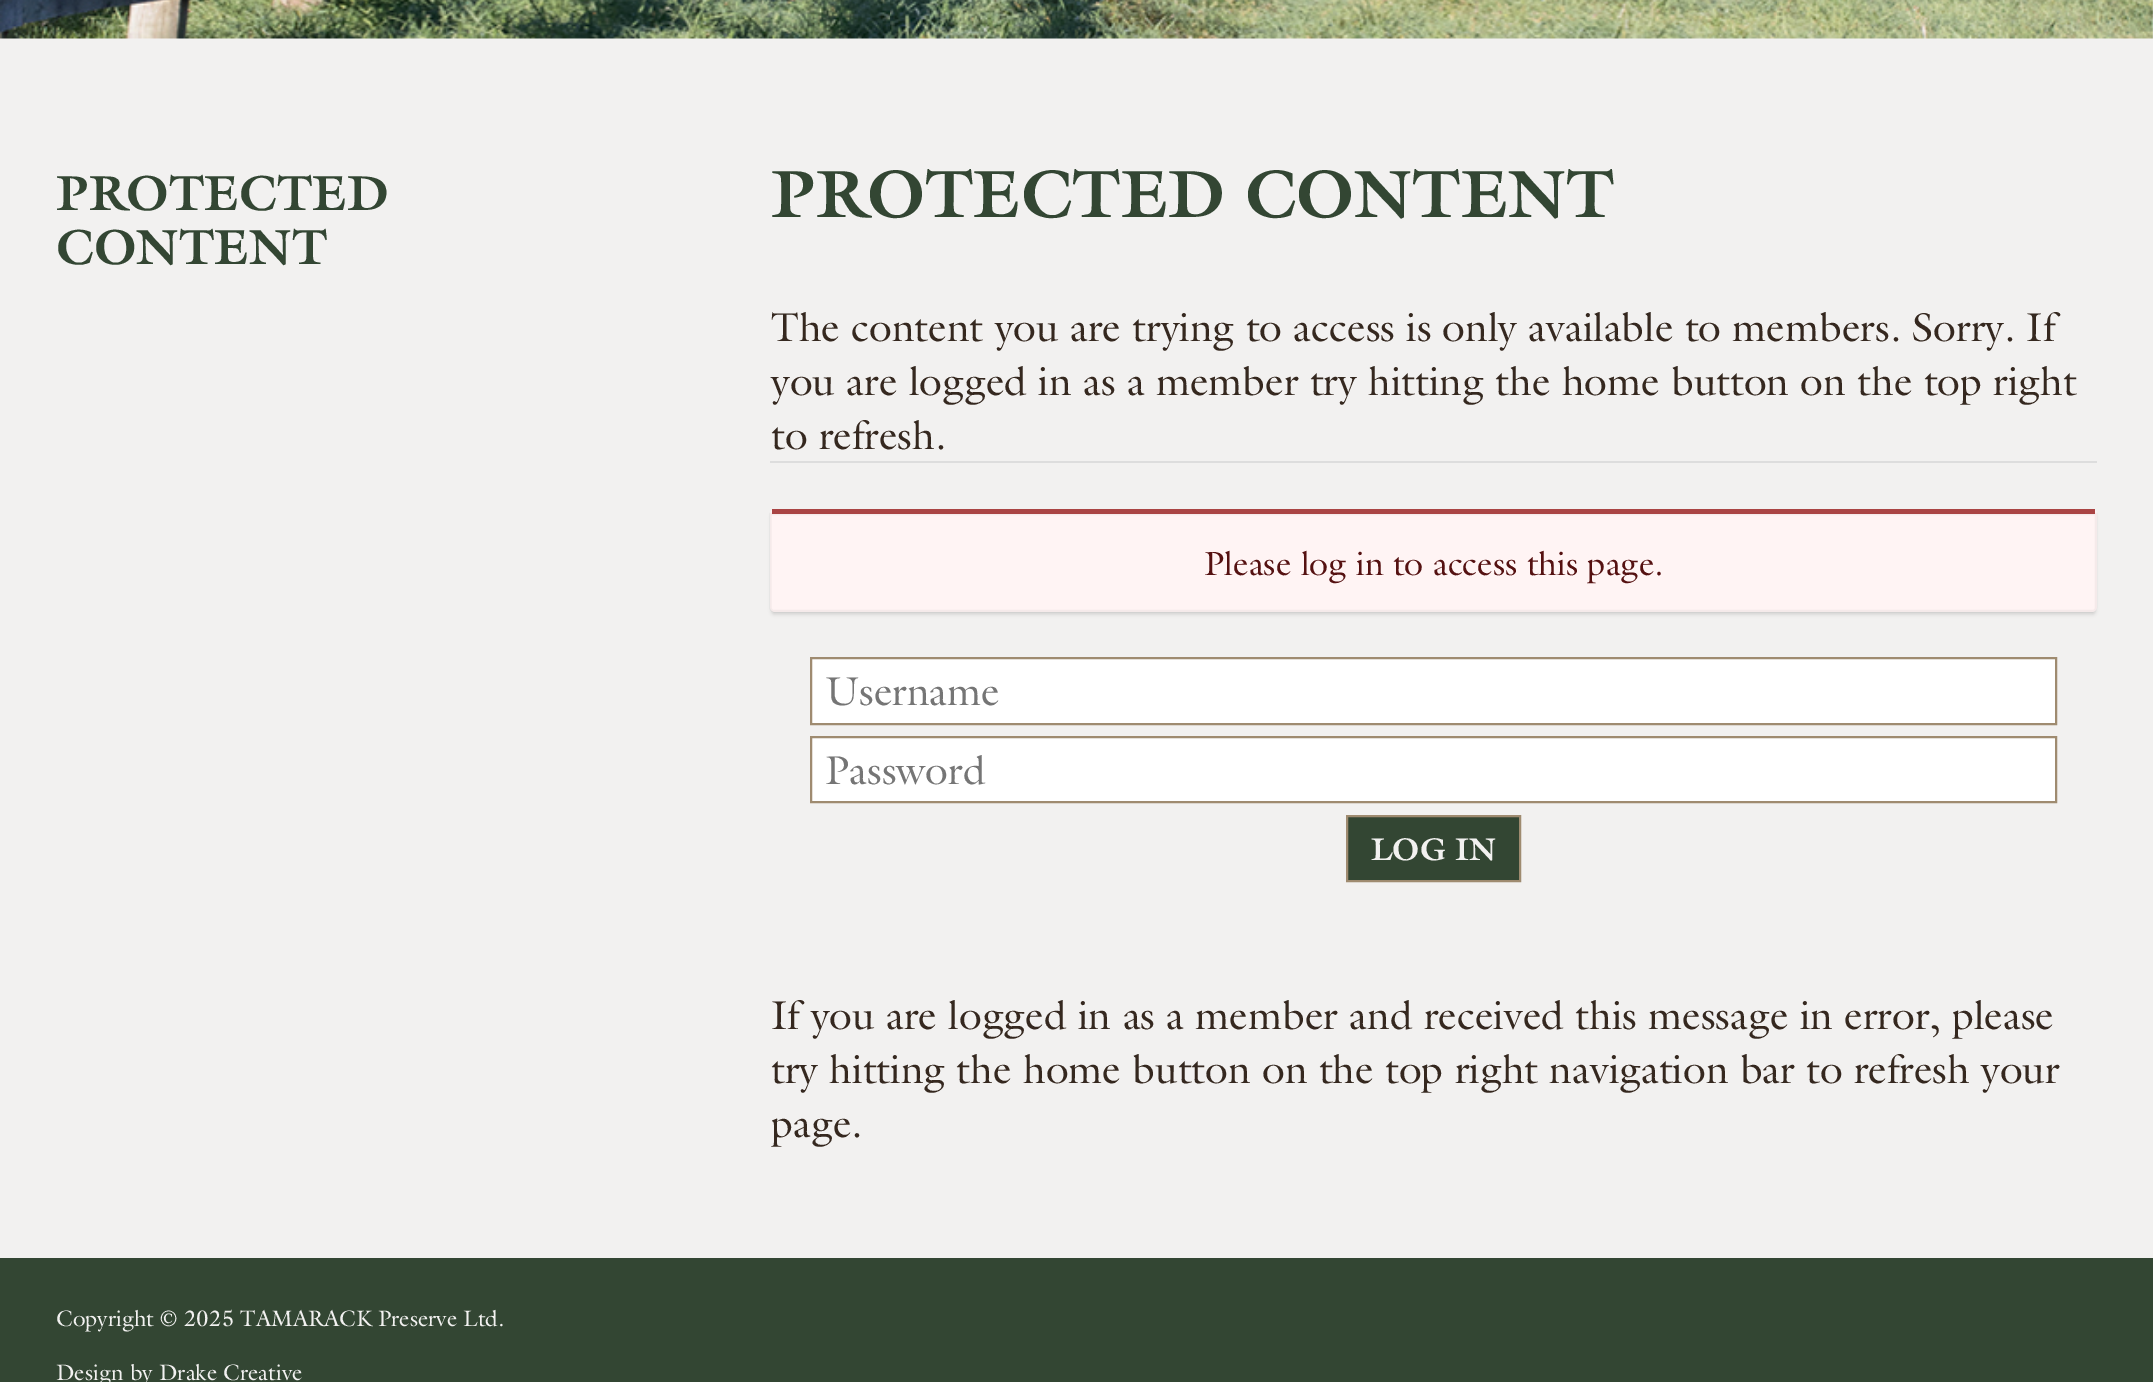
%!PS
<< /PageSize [2153 1382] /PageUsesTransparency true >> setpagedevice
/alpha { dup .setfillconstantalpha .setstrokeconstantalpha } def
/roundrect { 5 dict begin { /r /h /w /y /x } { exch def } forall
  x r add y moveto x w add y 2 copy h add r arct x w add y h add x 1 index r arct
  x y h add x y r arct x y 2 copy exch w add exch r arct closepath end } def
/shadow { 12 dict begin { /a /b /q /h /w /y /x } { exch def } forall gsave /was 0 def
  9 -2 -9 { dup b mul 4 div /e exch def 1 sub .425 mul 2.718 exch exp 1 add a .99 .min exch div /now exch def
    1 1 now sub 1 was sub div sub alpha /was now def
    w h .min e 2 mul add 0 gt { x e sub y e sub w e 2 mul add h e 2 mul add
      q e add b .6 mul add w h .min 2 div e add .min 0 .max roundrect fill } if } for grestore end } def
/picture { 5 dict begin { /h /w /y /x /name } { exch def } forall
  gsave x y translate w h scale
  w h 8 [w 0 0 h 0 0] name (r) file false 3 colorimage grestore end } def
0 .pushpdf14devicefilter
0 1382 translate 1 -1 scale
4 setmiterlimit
0.949 0.945 0.941 setrgbcolor
0 0 2153 1382 rectfill
(img1.rgb) 0 0 2153 39 picture
/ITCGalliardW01-Bold [49.5 0 0 -49.5 0 0] selectfont
0.2 0.275 0.2 setrgbcolor
56 210 moveto (PROTECTED) show
56 264 moveto (CONTENT) show
/ITCGalliardW01-Bold [67.5 0 0 -67.5 0 0] selectfont
771 217 moveto (PROTECTED CONTENT) show
/ITCGalliardW01-Regular [40.5 0 0 -40.5 0 0] selectfont
0.208 0.157 0.122 setrgbcolor
771 341 moveto (The content you are trying to access is only available to members. Sorry. If) show
771 395 moveto (you are logged in as a member try hitting the home button on the top right) show
771 449 moveto (to refresh.) show
0.867 setgray
770 461 1327 2 rectfill
0 setgray
772 515 1323 99 2 2 0.15 shadow
1 0.957 0.957 setrgbcolor
770 509 1327 103 5 roundrect fill
0.04 alpha
0 setgray
2.2 setlinewidth
newpath 774 514 moveto 2096 514 lineto 2096 607.5 lineto 2096 609.5 2094.5 611 2092.5 611 curveto 774 611 lineto 772 611 770.5 609.5 770.5 607.5 curveto 770.5 514 lineto closepath stroke
1 alpha
0.667 0.267 0.267 setrgbcolor
772 509 1323 5 rectfill
/ITCGalliardW01-Regular [33.75 0 0 -33.75 0 0] selectfont
0.333 0.067 0.067 setrgbcolor
1204 575 moveto (Please log in to access this page.) show
1 setgray
newpath 811 658 moveto 2056 658 lineto 2056 724 lineto 811 724 lineto closepath gsave fill grestore
0.624 0.545 0.439 setrgbcolor
2 setlinewidth
stroke
/ITCGalliardW01-Regular [40.5 0 0 -40.5 0 0] selectfont
0.459 setgray
825 705 moveto (Username) show
1 setgray
newpath 811 737 moveto 2056 737 lineto 2056 802 lineto 811 802 lineto closepath gsave fill grestore
0.624 0.545 0.439 setrgbcolor
stroke
0.459 setgray
825 784 moveto (Password) show
0.2 0.275 0.2 setrgbcolor
newpath 1347 816 moveto 1520 816 lineto 1520 881 lineto 1347 881 lineto closepath gsave fill grestore
0.624 0.545 0.439 setrgbcolor
stroke
/ITCGalliardW01-Bold [31.5 0 0 -31.5 0 0] selectfont
0.949 0.945 0.941 setrgbcolor
1371 860 moveto (LOG IN) show
/ITCGalliardW01-Regular [40.5 0 0 -40.5 0 0] selectfont
0.208 0.157 0.122 setrgbcolor
771 1029 moveto (If you are logged in as a member and received this message in error, please) show
771 1083 moveto (try hitting the home button on the top right navigation bar to refresh your) show
771 1137 moveto (page.) show
0.2 0.275 0.2 setrgbcolor
0 1258 2153 124 rectfill
/ITCGalliardW01-Regular [22.5 0 0 -22.5 0 0] selectfont
0.949 0.945 0.941 setrgbcolor
56 1326 moveto (Copyright © 2025 TAMARACK Preserve Ltd.) show
56 1380 moveto (Design by Drake Creative) show
.poppdf14devicefilter showpage
